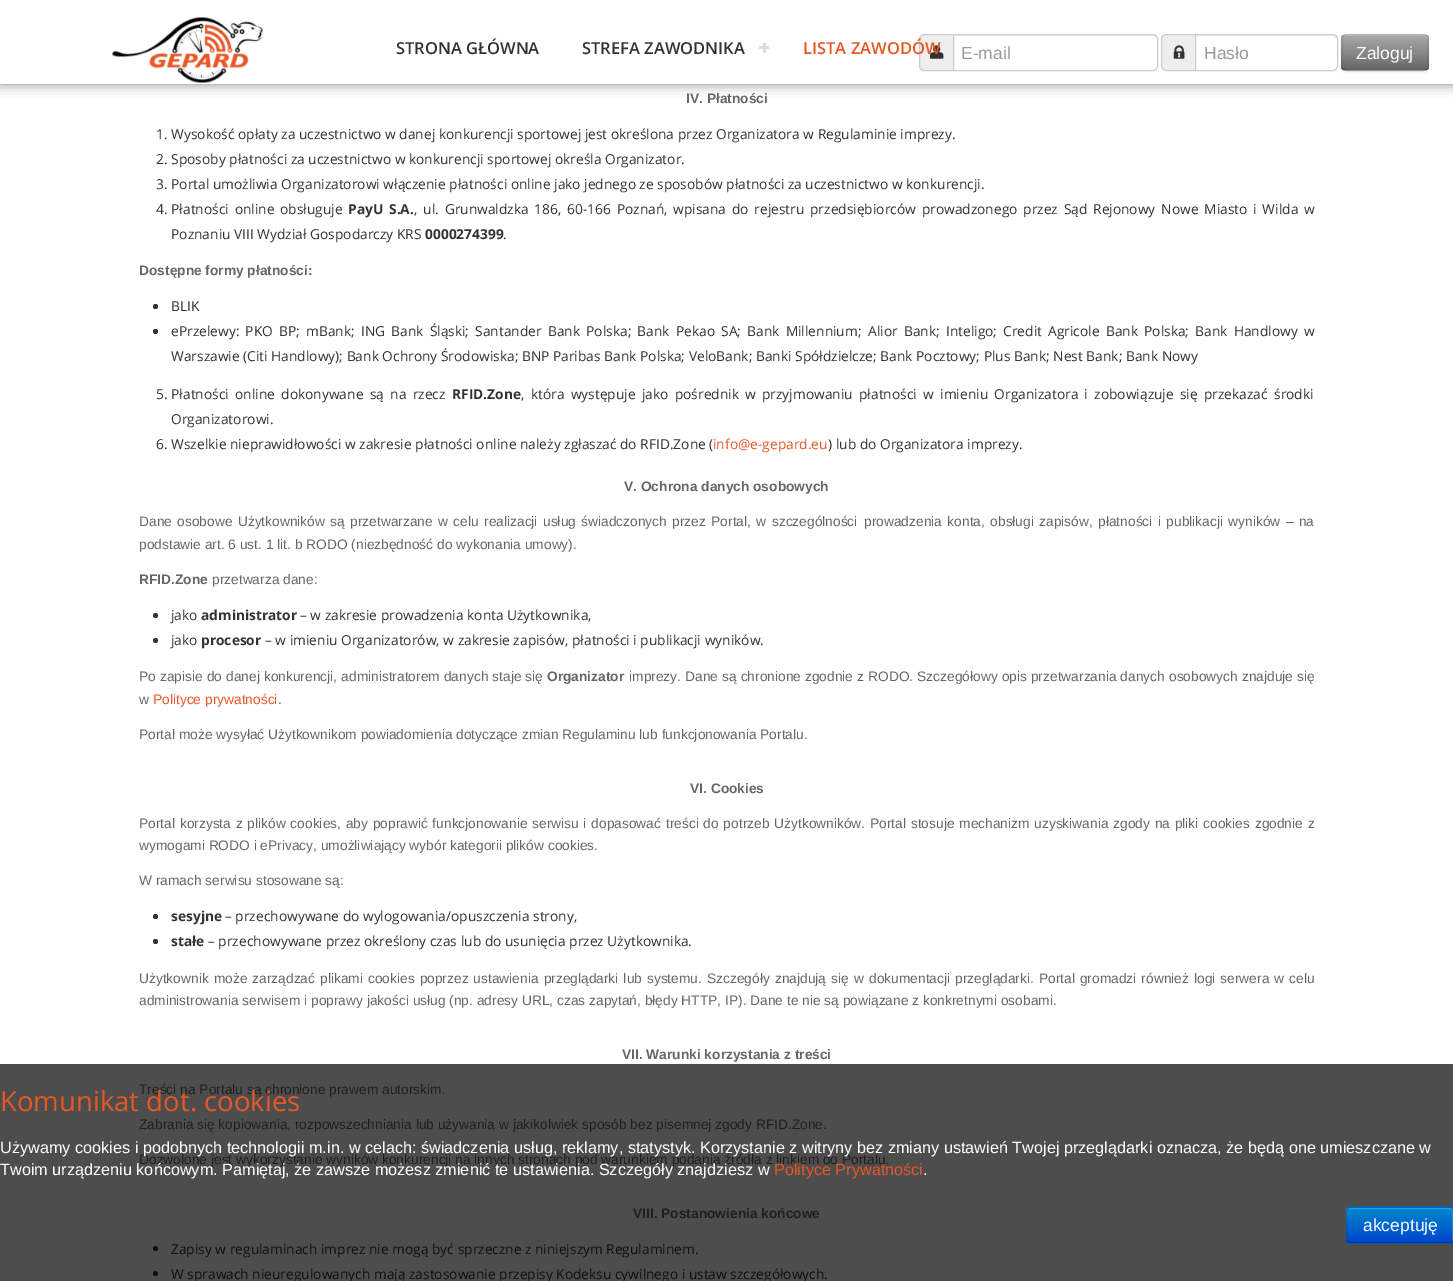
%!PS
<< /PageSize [1453 1281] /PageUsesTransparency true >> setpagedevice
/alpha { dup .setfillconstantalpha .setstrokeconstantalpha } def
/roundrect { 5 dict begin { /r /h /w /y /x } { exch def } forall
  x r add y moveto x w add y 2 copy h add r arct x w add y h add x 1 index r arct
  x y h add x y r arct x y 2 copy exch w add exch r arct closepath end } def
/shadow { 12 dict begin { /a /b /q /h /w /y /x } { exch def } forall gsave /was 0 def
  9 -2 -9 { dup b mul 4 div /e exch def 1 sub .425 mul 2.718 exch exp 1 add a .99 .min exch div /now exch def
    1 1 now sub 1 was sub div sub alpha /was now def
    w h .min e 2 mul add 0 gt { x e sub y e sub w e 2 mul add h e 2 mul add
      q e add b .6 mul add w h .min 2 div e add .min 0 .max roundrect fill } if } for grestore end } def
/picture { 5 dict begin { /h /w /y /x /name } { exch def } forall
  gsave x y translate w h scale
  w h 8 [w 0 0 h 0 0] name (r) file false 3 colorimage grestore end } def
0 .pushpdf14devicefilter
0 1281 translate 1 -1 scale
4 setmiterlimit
1 setgray
0 0 1453 1281 rectfill
0.302 setgray
0 1064 1453 217 rectfill
0 setgray
0 0 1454 84 0 6 0.5 shadow
1 setgray
0 0 1453 84 rectfill
(img1.rgb) 112 17 151 66 picture
/OpenSans-SemiBold [16.5 0 0 -16.5 0 0] selectfont
0.2 setgray
396 54 moveto (STRONA GŁÓWNA) show
582 54 moveto (STREFA ZAWODNIKA) show
0.867 setgray
763 43 3 10 rectfill
759 46 10 3 rectfill
0.933 setgray
newpath 924 34.5 moveto 953.5 34.5 lineto 953.5 70.5 lineto 924 70.5 lineto 921.5 70.5 919.5 68.5 919.5 66 curveto 919.5 39 lineto 919.5 36.5 921.5 34.5 924 34.5 curveto closepath gsave fill grestore
0.8 setgray
stroke
(img2.rgb) 930 45 14 14 picture
0.898 0.341 0.145 setrgbcolor
803 54 moveto (LISTA ZAWODÓW) show
1 setgray
newpath 953 34 moveto 1153 34 lineto 1156 34 1158 36 1158 39 curveto 1158 66 lineto 1158 69 1156 71 1153 71 curveto 953 71 lineto closepath fill
0.925 setgray
newpath 954 36 moveto 1152 36 lineto 1155 36 1156 38 1156 40 curveto 1156 37 1155 35 1152 35 curveto 954 35 lineto closepath fill
0.8 setgray
newpath 953.5 34.5 moveto 1153 34.5 lineto 1155.5 34.5 1157.5 36.5 1157.5 39 curveto 1157.5 66 lineto 1157.5 68.5 1155.5 70.5 1153 70.5 curveto 953.5 70.5 lineto closepath stroke
/LiberationSans-Regular [17.5 0 0 -17.5 0 0] selectfont
0.6 setgray
961 59 moveto (E-mail) show
0.933 setgray
newpath 1166 34.5 moveto 1195.5 34.5 lineto 1195.5 70.5 lineto 1166 70.5 lineto 1163.5 70.5 1161.5 68.5 1161.5 66 curveto 1161.5 39 lineto 1161.5 36.5 1163.5 34.5 1166 34.5 curveto closepath gsave fill grestore
0.8 setgray
stroke
(img3.rgb) 1173 45 12 14 picture
0 setgray
1341 35 88 38 5 1 0.05 shadow
1 setgray
newpath 1195 34 moveto 1333 34 lineto 1336 34 1338 36 1338 39 curveto 1338 66 lineto 1338 69 1336 71 1333 71 curveto 1195 71 lineto closepath fill
0.925 setgray
newpath 1196 36 moveto 1332 36 lineto 1335 36 1336 38 1336 40 curveto 1336 39 lineto 1336 37 1334 35 1332 35 curveto 1196 35 lineto closepath fill
0.8 setgray
newpath 1195.5 34.5 moveto 1333 34.5 lineto 1335.5 34.5 1337.5 36.5 1337.5 39 curveto 1337.5 66 lineto 1337.5 68.5 1335.5 70.5 1333 70.5 curveto 1195.5 70.5 lineto closepath stroke
0.6 setgray
1204 59 moveto (Hasło) show
0.8 setgray
1341 34 88 37 5 roundrect fill
gsave
1341 34 88 37 5 roundrect clip newpath
gsave newpath 1341 35 moveto 1429 35 lineto 1429 70 lineto 1341 70 lineto closepath clip newpath
<< /ShadingType 2 /ColorSpace /DeviceRGB /Coords [1385 35 1385 70] /Extend [true true] /Function << /FunctionType 2 /Domain [0 1] /C0 [0.667 0.667 0.667] /C1 [0.4 0.4 0.4] /N 1 >> >> shfill grestore
grestore
0.2 alpha
1 setgray
newpath 1346 36 moveto 1424 36 lineto 1426 36 1428 38 1428 40 curveto 1428 39 lineto 1428 37 1426 35 1424 35 curveto 1347 35 lineto 1346 35 1344 36 1344 37 curveto closepath fill
0.25 alpha
0 setgray
1.2 setlinewidth
newpath 1427 69.5 moveto 1424 70.5 lineto 1346 70.5 lineto 1343 69.5 lineto stroke
0.1 alpha
newpath 1343 69.5 moveto 1341 67.5 1342 64 1342 61.5 curveto 1342 52.5 lineto 1342 32.5 1339 34.5 1359 34.5 curveto 1411 34.5 lineto 1431 34.5 1428 32.5 1428 52.5 curveto 1428 61.5 lineto 1428 64 1429 67.5 1427 69.5 curveto stroke
1 alpha
1 setgray
1356 59 moveto (Zaloguj) show
/LiberationSans-Bold [13.75 0 0 -13.75 0 0] selectfont
0.4 setgray
686 103 moveto (IV. Płatności) show
/OpenSans-Regular [13.75 0 0 -13.75 0 0] selectfont
0.2 setgray
156 139 moveto (1. Wysokość opłaty za uczestnictwo w danej konkurencji sportowej jest określona przez Organizatora w Regulaminie imprezy.) show
156 164 moveto (2. Sposoby płatności za uczestnictwo w konkurencji sportowej określa Organizator.) show
156 189 moveto (3. Portal umożliwia Organizatorowi włączenie płatności online jako jednego ze sposobów płatności za uczestnictwo w konkurencji.) show
156 214 moveto (4.) show
171 214 moveto 2.25 0 32 (Płatności online obsługuje) widthshow
/OpenSans-Bold [13.75 0 0 -13.75 0 0] selectfont
348 214 moveto 2.25 0 32 (PayU S.A.) widthshow
/OpenSans-Regular [13.75 0 0 -13.75 0 0] selectfont
414 214 moveto 2.25 0 32 (, ul. Grunwaldzka 186, 60-166 Poznań,) widthshow
673 214 moveto 2.25 0 32 (wpisana do rejestru przedsiębiorców prowadzonego przez Sąd Rejonowy Nowe Miasto i Wilda w) widthshow
171 239 moveto (Poznaniu VIII Wydział Gospodarczy KRS) show
/OpenSans-Bold [13.75 0 0 -13.75 0 0] selectfont
425 239 moveto (0000274399) show
/OpenSans-Regular [13.75 0 0 -13.75 0 0] selectfont
503 239 moveto (.) show
/LiberationSans-Bold [13.75 0 0 -13.75 0 0] selectfont
0.4 setgray
139 275 moveto (Dostępne formy płatności:) show
0.2 setgray
newpath 155.5 306.5 2.5 0 360 arc closepath fill
/OpenSans-Regular [13.75 0 0 -13.75 0 0] selectfont
171 311 moveto (BLIK) show
newpath 155.5 331.5 2.5 0 360 arc closepath fill
171 336 moveto 2.6 0 32 (ePrzelewy: PKO BP; mBank; ING Bank Śląski; Santander Bank Polska; Bank Pekao SA; Bank Millennium;) widthshow
868 336 moveto 2.6 0 32 (Alior Bank; Inteligo; Credit Agricole Bank Polska; Bank Handlowy w) widthshow
171 361 moveto (Warszawie \(Citi Handlowy\); Bank Ochrony Środowiska; BNP Paribas Bank Polska; VeloBank; Banki Spółdzielcze; Bank Pocztowy; Plus Bank; Nest Bank; Bank Nowy) show
156 399 moveto (5.) show
171 399 moveto 2.75 0 32 (Płatności online dokonywane są na rzecz) widthshow
/OpenSans-Bold [13.75 0 0 -13.75 0 0] selectfont
452 399 moveto (RFID.Zone) show
/OpenSans-Regular [13.75 0 0 -13.75 0 0] selectfont
521 399 moveto 2.75 0 32 (, która występuje jako pośrednik) widthshow
745 399 moveto 2.75 0 32 (w przyjmowaniu płatności w imieniu Organizatora i zobowiązuje się przekazać środki) widthshow
171 424 moveto (Organizatorowi.) show
156 449 moveto (6. Wszelkie nieprawidłowości w zakresie płatności online należy zgłaszać do RFID.Zone \() show
0.898 0.341 0.145 setrgbcolor
713 449 moveto (info@e-gepard.eu) show
0.2 setgray
828 449 moveto (\) lub do Organizatora imprezy.) show
/LiberationSans-Bold [13.75 0 0 -13.75 0 0] selectfont
0.4 setgray
624 491 moveto (V. Ochrona danych osobowych) show
/LiberationSans-Regular [13.75 0 0 -13.75 0 0] selectfont
139 526 moveto 1.6 0 32 (Dane osobowe Użytkowników są przetwarzane w celu realizacji usług świadczonych przez Portal, w szczególności) widthshow
864 526 moveto 1.6 0 32 (prowadzenia konta, obsługi zapisów, płatności i publikacji wyników – na) widthshow
139 549 moveto (podstawie art. 6 ust. 1 lit. b RODO \(niezbędność do wykonania umowy\).) show
/LiberationSans-Bold [13.75 0 0 -13.75 0 0] selectfont
139 584 moveto (RFID.Zone) show
/LiberationSans-Regular [13.75 0 0 -13.75 0 0] selectfont
212 584 moveto (przetwarza dane:) show
0.2 setgray
newpath 155.5 615.5 2.5 0 360 arc closepath fill
/OpenSans-Regular [13.75 0 0 -13.75 0 0] selectfont
171 620 moveto (jako) show
/OpenSans-Bold [13.75 0 0 -13.75 0 0] selectfont
201 620 moveto (administrator) show
/OpenSans-Regular [13.75 0 0 -13.75 0 0] selectfont
300 620 moveto (– w zakresie prowadzenia konta Użytkownika,) show
newpath 155.5 640.5 2.5 0 360 arc closepath fill
171 645 moveto (jako) show
/OpenSans-Bold [13.75 0 0 -13.75 0 0] selectfont
201 645 moveto (procesor) show
/OpenSans-Regular [13.75 0 0 -13.75 0 0] selectfont
265 645 moveto (– w imieniu Organizatorów, w zakresie zapisów, płatności i publikacji wyników.) show
/LiberationSans-Regular [13.75 0 0 -13.75 0 0] selectfont
0.4 setgray
139 681 moveto 0.25 0 32 (Po zapisie do danej konkurencji, administratorem danych staje się) widthshow
/LiberationSans-Bold [13.75 0 0 -13.75 0 0] selectfont
547 681 moveto (Organizator) show
/LiberationSans-Regular [13.75 0 0 -13.75 0 0] selectfont
629 681 moveto (imprezy.) show
685 681 moveto 0.25 0 32 (Dane są chronione zgodnie z RODO. Szczegółowy opis przetwarzania danych osobowych znajduje się) widthshow
139 704 moveto (w) show
0.898 0.341 0.145 setrgbcolor
153 704 moveto (Polityce prywatności) show
0.4 setgray
278 704 moveto (.) show
139 739 moveto (Portal może wysyłać Użytkownikom powiadomienia dotyczące zmian Regulaminu lub funkcjonowania Portalu.) show
/LiberationSans-Bold [13.75 0 0 -13.75 0 0] selectfont
690 793 moveto (VI. Cookies) show
/LiberationSans-Regular [13.75 0 0 -13.75 0 0] selectfont
139 828 moveto 1 0 32 (Portal korzysta z plików cookies, aby poprawić funkcjonowanie serwisu i dopasować treści do potrzeb Użytkowników.) widthshow
870 828 moveto 1 0 32 (Portal stosuje mechanizm uzyskiwania zgody na pliki cookies zgodnie z) widthshow
139 850 moveto (wymogami RODO i ePrivacy, umożliwiający wybór kategorii plików cookies.) show
139 885 moveto (W ramach serwisu stosowane są:) show
0.2 setgray
newpath 155.5 916.5 2.5 0 360 arc closepath fill
/OpenSans-Bold [13.75 0 0 -13.75 0 0] selectfont
171 921 moveto (sesyjne) show
/OpenSans-Regular [13.75 0 0 -13.75 0 0] selectfont
225 921 moveto (– przechowywane do wylogowania/opuszczenia strony,) show
newpath 155.5 941.5 2.5 0 360 arc closepath fill
/OpenSans-Bold [13.75 0 0 -13.75 0 0] selectfont
171 946 moveto (stałe) show
/OpenSans-Regular [13.75 0 0 -13.75 0 0] selectfont
208 946 moveto (– przechowywane przez określony czas lub do usunięcia przez Użytkownika.) show
/LiberationSans-Regular [13.75 0 0 -13.75 0 0] selectfont
0.4 setgray
139 983 moveto 1.25 0 32 (Użytkownik może zarządzać plikami cookies poprzez ustawienia przeglądarki lub systemu. Szczegóły znajdują się) widthshow
854 983 moveto 1.25 0 32 (w dokumentacji przeglądarki. Portal gromadzi również logi serwera w celu) widthshow
139 1005 moveto (administrowania serwisem i poprawy jakości usług \(np. adresy URL, czas zapytań, błędy HTTP, IP\). Dane te nie są powiązane z konkretnymi osobami.) show
/LiberationSans-Bold [13.75 0 0 -13.75 0 0] selectfont
622 1059 moveto (VII. Warunki korzystania z treści) show
/LiberationSans-Regular [13.75 0 0 -13.75 0 0] selectfont
0.122 setgray
139 1094 moveto (Treści na Portalu są chronione prawem autorskim.) show
139 1129 moveto (Zabrania się kopiowania, rozpowszechniania lub używania w jakikolwiek sposób bez pisemnej zgody RFID.Zone.) show
139 1164 moveto (Dozwolone jest wykorzystanie wyników konkurencji na innych stronach pod warunkiem podania źródła z linkiem do Portalu.) show
/LiberationSans-Bold [13.75 0 0 -13.75 0 0] selectfont
633 1218 moveto (VIII. Postanowienia końcowe) show
0.059 setgray
newpath 155.5 1248.5 2.5 0 360 arc closepath fill
/OpenSans-Regular [13.75 0 0 -13.75 0 0] selectfont
171 1254 moveto (Zapisy w regulaminach imprez nie mogą być sprzeczne z niniejszym Regulaminem.) show
newpath 155.5 1273.5 2.5 0 360 arc closepath fill
171 1279 moveto (W sprawach nieuregulowanych mają zastosowanie przepisy Kodeksu cywilnego i ustaw szczegółowych.) show
/OpenSans-Regular [27.5 0 0 -27.5 0 0] selectfont
0.898 0.341 0.145 setrgbcolor
0 1111 moveto (Komunikat dot. cookies) show
/LiberationSans-Regular [16.25 0 0 -16.25 0 0] selectfont
1 setgray
0 1153 moveto (Używamy cookies i podobnych technologii m.in. w celach: świadczenia usług, reklamy, statystyk. Korzystanie z witryny bez zmiany ustawień Twojej przeglądarki oznacza, że będą one umieszczane w) show
0 1175 moveto (Twoim urządzeniu końcowym. Pamiętaj, że zawsze możesz zmienić te ustawienia. Szczegóły znajdziesz w) show
0.898 0.341 0.145 setrgbcolor
774 1175 moveto (Polityce Prywatności) show
1 setgray
923 1175 moveto (.) show
0 0.427 0.8 setrgbcolor
1346 1206 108 38 5 roundrect fill
gsave
1346 1206 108 38 5 roundrect clip newpath
gsave newpath 1346 1208 moveto 1453 1208 lineto 1453 1243 lineto 1346 1243 lineto closepath clip newpath
<< /ShadingType 2 /ColorSpace /DeviceRGB /Coords [1400 1208 1400 1243] /Extend [true true] /Function << /FunctionType 2 /Domain [0 1] /C0 [0 0.533 0.8] /C1 [0 0.267 0.8] /N 1 >> >> shfill grestore
grestore
0.2 alpha
1 setgray
newpath 1351 1209 moveto 1449 1209 lineto 1453 1209 1452 1214 1452 1217 curveto 1452 1242 lineto 1452 1241 1453 1240 1453 1239 curveto 1453 1212 lineto 1453 1210 1451 1208 1449 1208 curveto 1352 1208 lineto 1351 1208 1349 1209 1349 1210 curveto closepath fill
0.25 alpha
0 setgray
newpath 1452 1242 moveto 1449 1243 lineto 1351 1243 lineto 1348 1242 lineto stroke
0.1 alpha
newpath 1348 1242 moveto 1346 1240 1347 1236.5 1347 1234 curveto 1347 1225 lineto 1347 1203.5 1344 1207 1367.5 1207 curveto 1432.5 1207 lineto 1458 1207 1453 1204 1453 1229.5 curveto 1453 1232.5 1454.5 1239 1452 1242 curveto stroke
/LiberationSans-Regular [17.5 0 0 -17.5 0 0] selectfont
1 alpha
1 setgray
1363 1231 moveto (akceptuję) show
.poppdf14devicefilter showpage
